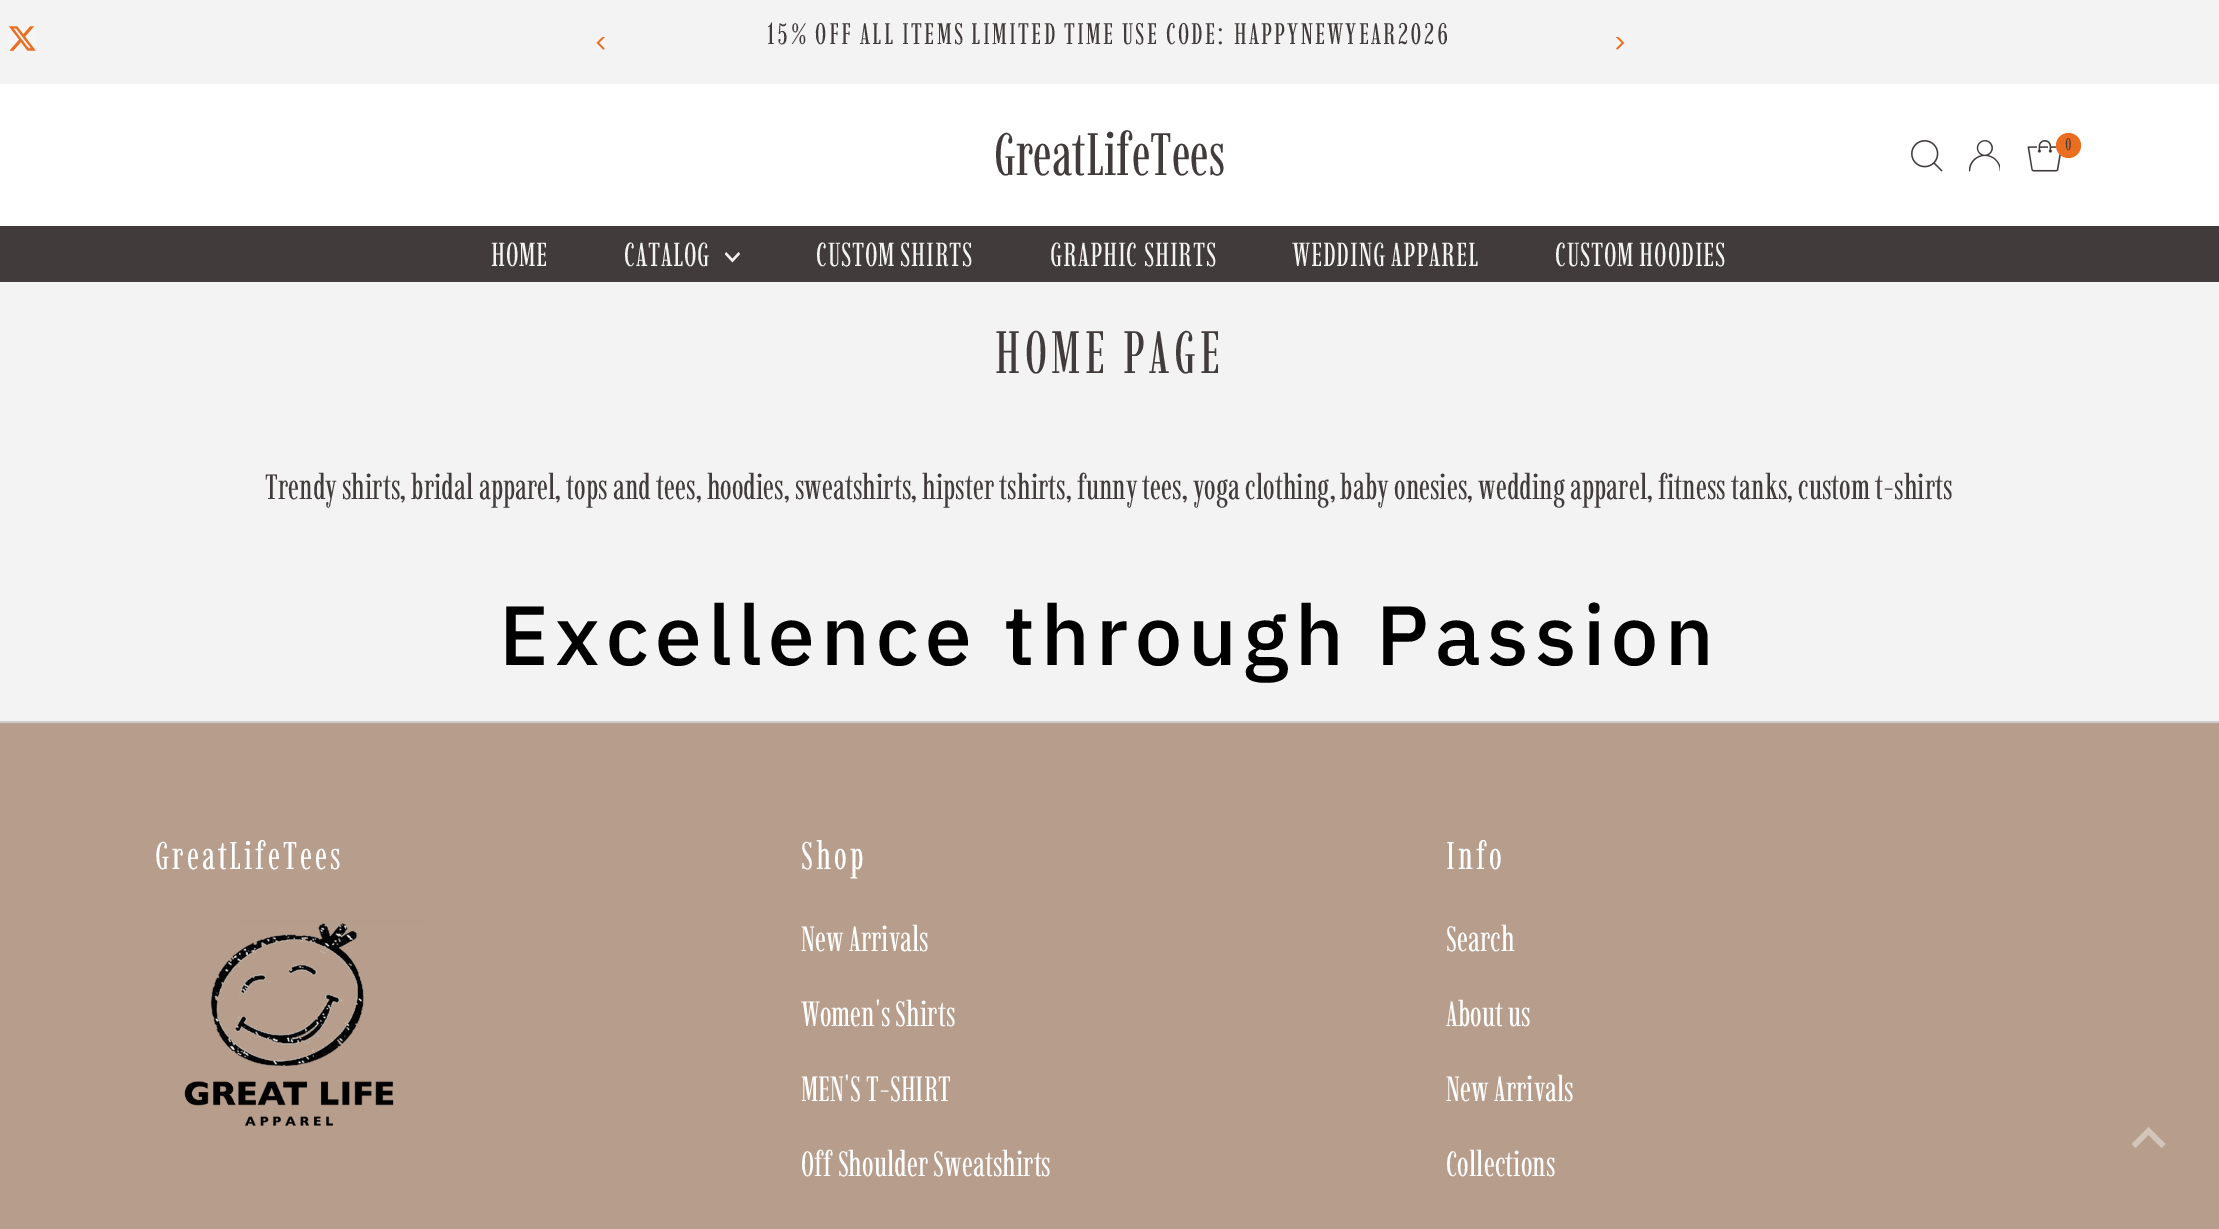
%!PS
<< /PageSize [2219 1229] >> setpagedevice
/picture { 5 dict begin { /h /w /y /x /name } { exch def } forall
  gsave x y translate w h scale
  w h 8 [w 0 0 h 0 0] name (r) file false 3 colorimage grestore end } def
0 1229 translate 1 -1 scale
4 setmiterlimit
0.953 setgray
0 0 2219 1229 rectfill
(img1.rgb) 9 26 27 25 picture
(img2.rgb) 596 37 9 13 picture
/Imbue-Regular [29.75 0 0 -29.75 0 0] selectfont
0.255 0.231 0.231 setrgbcolor
767 44 moveto -0.25 0 32 2.23 0 (15% OFF ALL ITEMS LIMITED TIME USE CODE: HAPPYNEWYEAR2026) awidthshow
(img3.rgb) 1616 37 9 13 picture
1 setgray
0 84 2219 142 rectfill
/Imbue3-Regular [59.5 0 0 -59.5 0 0] selectfont
0.255 0.231 0.231 setrgbcolor
994 175 moveto (GreatLifeTees) show
(img4.rgb) 1911 140 32 32 picture
(img5.rgb) 1969 140 31 32 picture
(img6.rgb) 2027 140 34 32 picture
0.922 0.427 0.125 setrgbcolor
newpath 2068.5 145.5 12.5 0 360 arc closepath fill
/Imbue-Regular [17 0 0 -17 0 0] selectfont
0.255 0.231 0.231 setrgbcolor
2065 150 moveto (0) show
0 226 2219 56 rectfill
/Imbue-Regular [33.25 0 0 -33.25 0 0] selectfont
0.953 setgray
491 266 moveto 0.8 0 (HOME) ashow
624 266 moveto 0.8 0 (CATALOG) ashow
(img7.rgb) 725 252 15 11 picture
816 266 moveto -1 0 32 0.8 0 (CUSTOM SHIRTS) awidthshow
1050 266 moveto 0.8 0 (GRAPHIC SHIRTS) ashow
1292 266 moveto -1 0 32 0.8 0 (WEDDING APPAREL) awidthshow
1555 266 moveto -1 0 32 0.8 0 (CUSTOM HOODIES) awidthshow
/Imbue3-Regular [59.5 0 0 -59.5 0 0] selectfont
0.255 0.231 0.231 setrgbcolor
995 373 moveto 4.5 0 (HOME PAGE) ashow
/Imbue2-Regular [35 0 0 -35 0 0] selectfont
265 499 moveto (Trendy shirts, bridal apparel, tops and tees, hoodies, sweatshirts, hipster tshirts, funny tees, yoga clothing, baby onesies, wedding apparel, fitness tanks, custom t-shirts) show
/IBMPlexSans-Medium [84 0 0 -84 0 0] selectfont
0 setgray
499 665 moveto 6.3 0 (Excellence through Passion) ashow
0.718 0.62 0.549 setrgbcolor
0 723 2219 506 rectfill
0.8 setgray
0 721 2219 2 rectfill
/Imbue-Regular [38.5 0 0 -38.5 0 0] selectfont
1 setgray
155 869 moveto 2.9 0 (GreatLifeTees) ashow
(img8.rgb) 184 921 243 205 picture
801 869 moveto 2.9 0 (Shop) ashow
/Imbue2-Regular [35 0 0 -35 0 0] selectfont
801 951 moveto (New Arrivals) show
801 1026 moveto (Women's Shirts) show
801 1101 moveto (MEN'S T-SHIRT) show
801 1176 moveto (Off Shoulder Sweatshirts) show
/Imbue-Regular [38.5 0 0 -38.5 0 0] selectfont
1446 869 moveto 2.9 0 (Info) ashow
/Imbue2-Regular [35 0 0 -35 0 0] selectfont
1446 951 moveto (Search) show
1446 1026 moveto (About us) show
1446 1101 moveto (New Arrivals) show
1446 1176 moveto (Collections) show
0.831 0.773 0.729 setrgbcolor
newpath 2148.5 1127 moveto 2131.5 1144 lineto 2135.5 1148 lineto 2148.5 1135 lineto 2161.5 1148 lineto 2165.5 1144 lineto closepath fill
showpage
